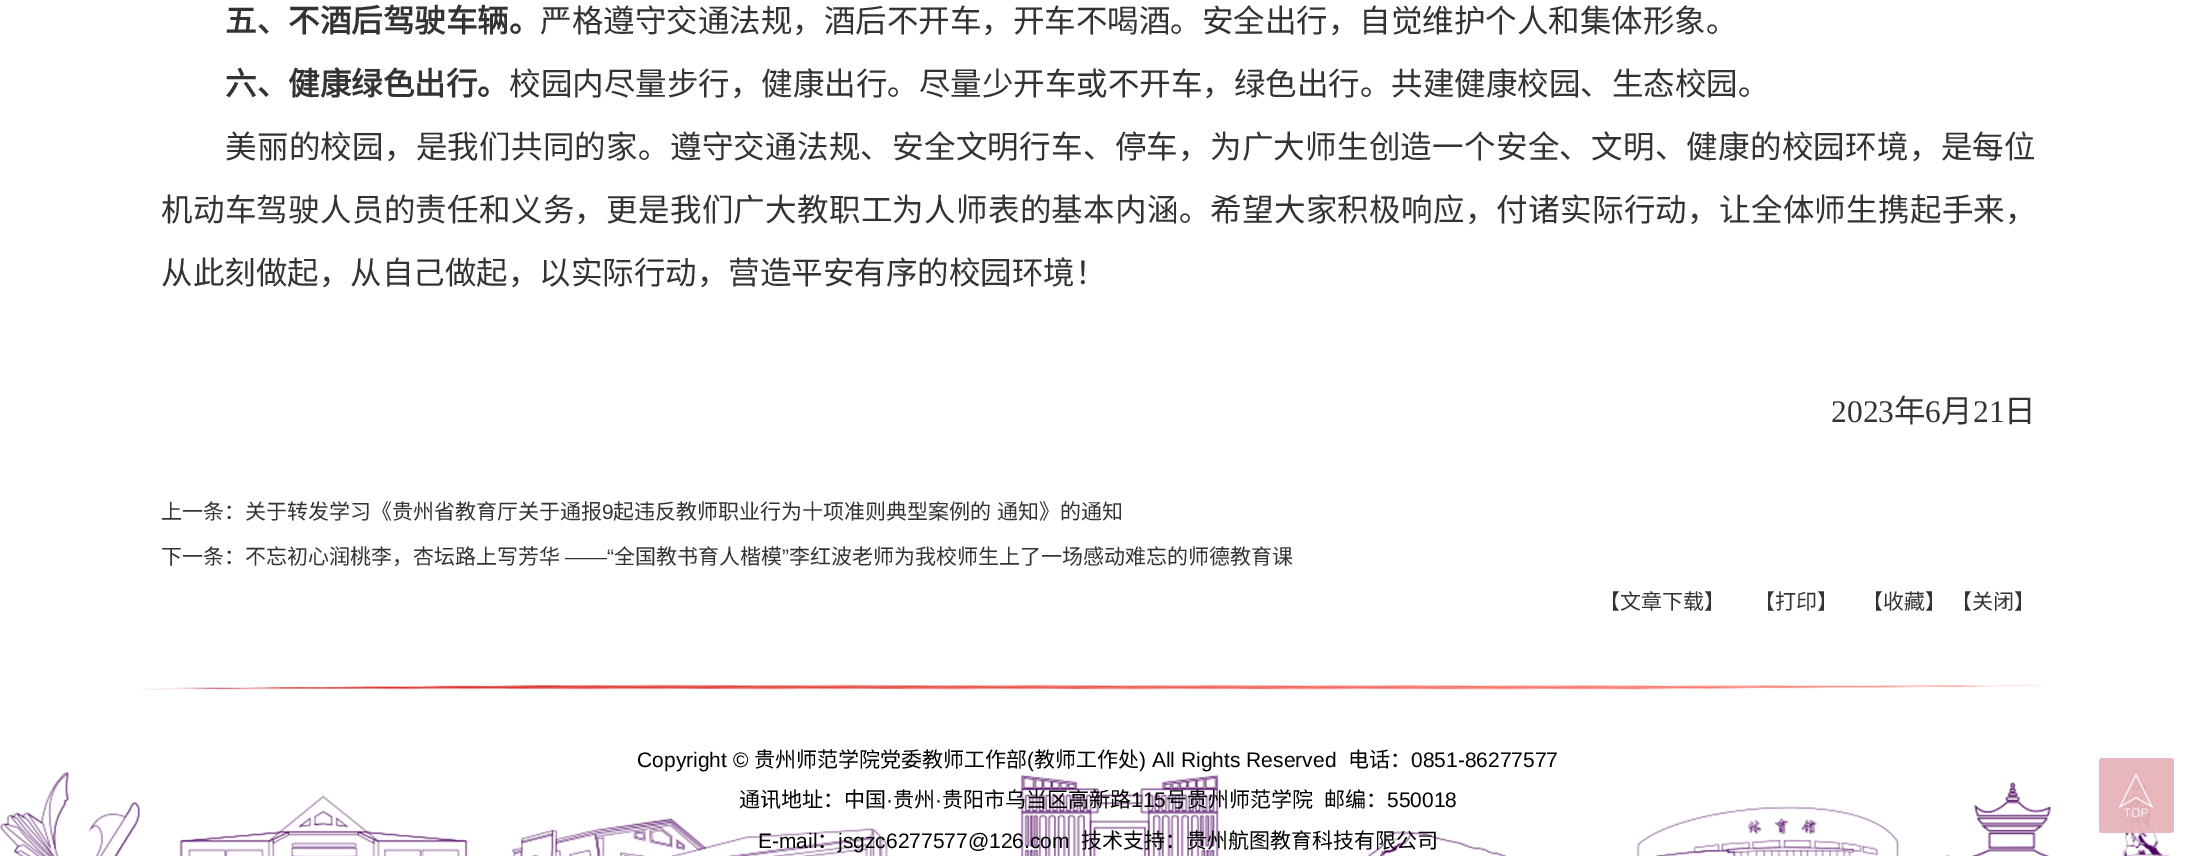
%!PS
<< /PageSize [2196 856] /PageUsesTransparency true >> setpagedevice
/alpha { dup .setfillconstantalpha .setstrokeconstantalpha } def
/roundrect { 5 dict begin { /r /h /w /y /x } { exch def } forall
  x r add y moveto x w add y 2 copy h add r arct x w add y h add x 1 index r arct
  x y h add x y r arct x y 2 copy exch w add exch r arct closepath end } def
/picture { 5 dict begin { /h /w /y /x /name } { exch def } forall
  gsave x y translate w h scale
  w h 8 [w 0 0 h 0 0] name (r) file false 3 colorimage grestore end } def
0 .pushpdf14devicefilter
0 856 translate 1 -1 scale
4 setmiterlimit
1 setgray
0 0 2196 856 rectfill
/NotoSansCJKSC-Bold [31.5 0 0 -31.5 0 0] selectfont
0.2 setgray
225 32 moveto (五、不酒后驾驶车辆。) show
/NotoSansCJKSC-Regular [31.5 0 0 -31.5 0 0] selectfont
540 32 moveto (严格遵守交通法规，酒后不开车，开车不喝酒。安全出行，自觉维护个人和集体形象。) show
/NotoSansCJKSC-Bold [31.5 0 0 -31.5 0 0] selectfont
225 95 moveto (六、健康绿色出行。) show
/NotoSansCJKSC-Regular [31.5 0 0 -31.5 0 0] selectfont
509 95 moveto (校园内尽量步行，健康出行。尽量少开车或不开车，绿色出行。共建健康校园、生态校园。) show
225 158 moveto 0.27 0 (美丽的校园，是我们共同的家。遵守交通法规、安全文明行车、停车，为广大师生创造一个安全、文明、健康的校园环境，是每位) ashow
161 221 moveto 0.3 0 (机动车驾驶人员的责任和义务，更是我们广大教职工为人师表的基本内涵。希望大家积极响应，付诸实际行动，让全体师生携起手来，) ashow
161 284 moveto (从此刻做起，从自己做起，以实际行动，营造平安有序的校园环境！) show
/LiberationSerif-Regular [31.5 0 0 -31.5 0 0] selectfont
1831 422 moveto (2023) show
/NotoSansCJKSC-Regular [31.5 0 0 -31.5 0 0] selectfont
1894 422 moveto (年) show
/LiberationSerif-Regular [31.5 0 0 -31.5 0 0] selectfont
1925 422 moveto (6) show
/NotoSansCJKSC-Regular [31.5 0 0 -31.5 0 0] selectfont
1941 422 moveto (月) show
/LiberationSerif-Regular [31.5 0 0 -31.5 0 0] selectfont
1973 422 moveto (21) show
/NotoSansCJKSC-Regular [31.5 0 0 -31.5 0 0] selectfont
2004 422 moveto (日) show
/NotoSansCJKSC-Regular [21 0 0 -21 0 0] selectfont
161 519 moveto (上一条：关于转发学习《贵州省教育厅关于通报) show
/LiberationSans-Regular [21 0 0 -21 0 0] selectfont
602 519 moveto (9) show
/NotoSansCJKSC-Regular [21 0 0 -21 0 0] selectfont
613 519 moveto (起违反教师职业行为十项准则典型案例的) show
997 519 moveto (通知》的通知) show
161 564 moveto (下一条：不忘初心润桃李，杏坛路上写芳华) show
/LiberationSans-Regular [21 0 0 -21 0 0] selectfont
565 564 moveto (——“) show
/NotoSansCJKSC-Regular [21 0 0 -21 0 0] selectfont
614 564 moveto (全国教书育人楷模) show
/LiberationSans-Regular [21 0 0 -21 0 0] selectfont
782 564 moveto (”) show
/NotoSansCJKSC-Regular [21 0 0 -21 0 0] selectfont
789 564 moveto (李红波老师为我校师生上了一场感动难忘的师德教育课) show
1599 609 moveto (【文章下载】) show
1754 609 moveto (【打印】) show
1862 609 moveto (【收藏】) show
1951 609 moveto (【关闭】) show
(img1.rgb) 0 772 2170 84 picture
(img2.rgb) 141 684 1905 6 picture
/LiberationSans-Regular [21 0 0 -21 0 0] selectfont
0 setgray
637 767 moveto (Copyright ©) show
/NotoSansCJKSC-Regular [21 0 0 -21 0 0] selectfont
754 767 moveto (贵州师范学院党委教师工作部) show
/LiberationSans-Regular [21 0 0 -21 0 0] selectfont
1027 767 moveto (\() show
/NotoSansCJKSC-Regular [21 0 0 -21 0 0] selectfont
1034 767 moveto (教师工作处) show
/LiberationSans-Regular [21 0 0 -21 0 0] selectfont
1139 767 moveto (\) All Rights Reserved) show
/NotoSansCJKSC-Regular [21 0 0 -21 0 0] selectfont
1348 767 moveto (电话：) show
/LiberationSans-Regular [21 0 0 -21 0 0] selectfont
1411 767 moveto (0851-86277577) show
/NotoSansCJKSC-Regular [21 0 0 -21 0 0] selectfont
739 807 moveto (通讯地址：中国) show
/LiberationSans-Regular [21 0 0 -21 0 0] selectfont
886 807 moveto (·) show
/NotoSansCJKSC-Regular [21 0 0 -21 0 0] selectfont
893 807 moveto (贵州) show
/LiberationSans-Regular [21 0 0 -21 0 0] selectfont
935 807 moveto (·) show
/NotoSansCJKSC-Regular [21 0 0 -21 0 0] selectfont
942 807 moveto (贵阳市乌当区高新路) show
/LiberationSans-Regular [21 0 0 -21 0 0] selectfont
1131 807 moveto (115) show
/NotoSansCJKSC-Regular [21 0 0 -21 0 0] selectfont
1166 807 moveto (号贵州师范学院) show
1324 807 moveto (邮编：) show
/LiberationSans-Regular [21 0 0 -21 0 0] selectfont
1387 807 moveto (550018) show
758 848 moveto (E-mail) show
/NotoSansCJKSC-Regular [21 0 0 -21 0 0] selectfont
817 848 moveto (：) show
/LiberationSans-Regular [21 0 0 -21 0 0] selectfont
838 848 moveto (jsgzc6277577@126.com) show
/NotoSansCJKSC-Regular [21 0 0 -21 0 0] selectfont
1081 848 moveto (技术支持：贵州航图教育科技有限公司) show
0.95 alpha
0.902 0.702 0.729 setrgbcolor
2099 758 75 75 3 roundrect fill
1 alpha
(img3.rgb) 2118 773 36 44 picture
.poppdf14devicefilter showpage
